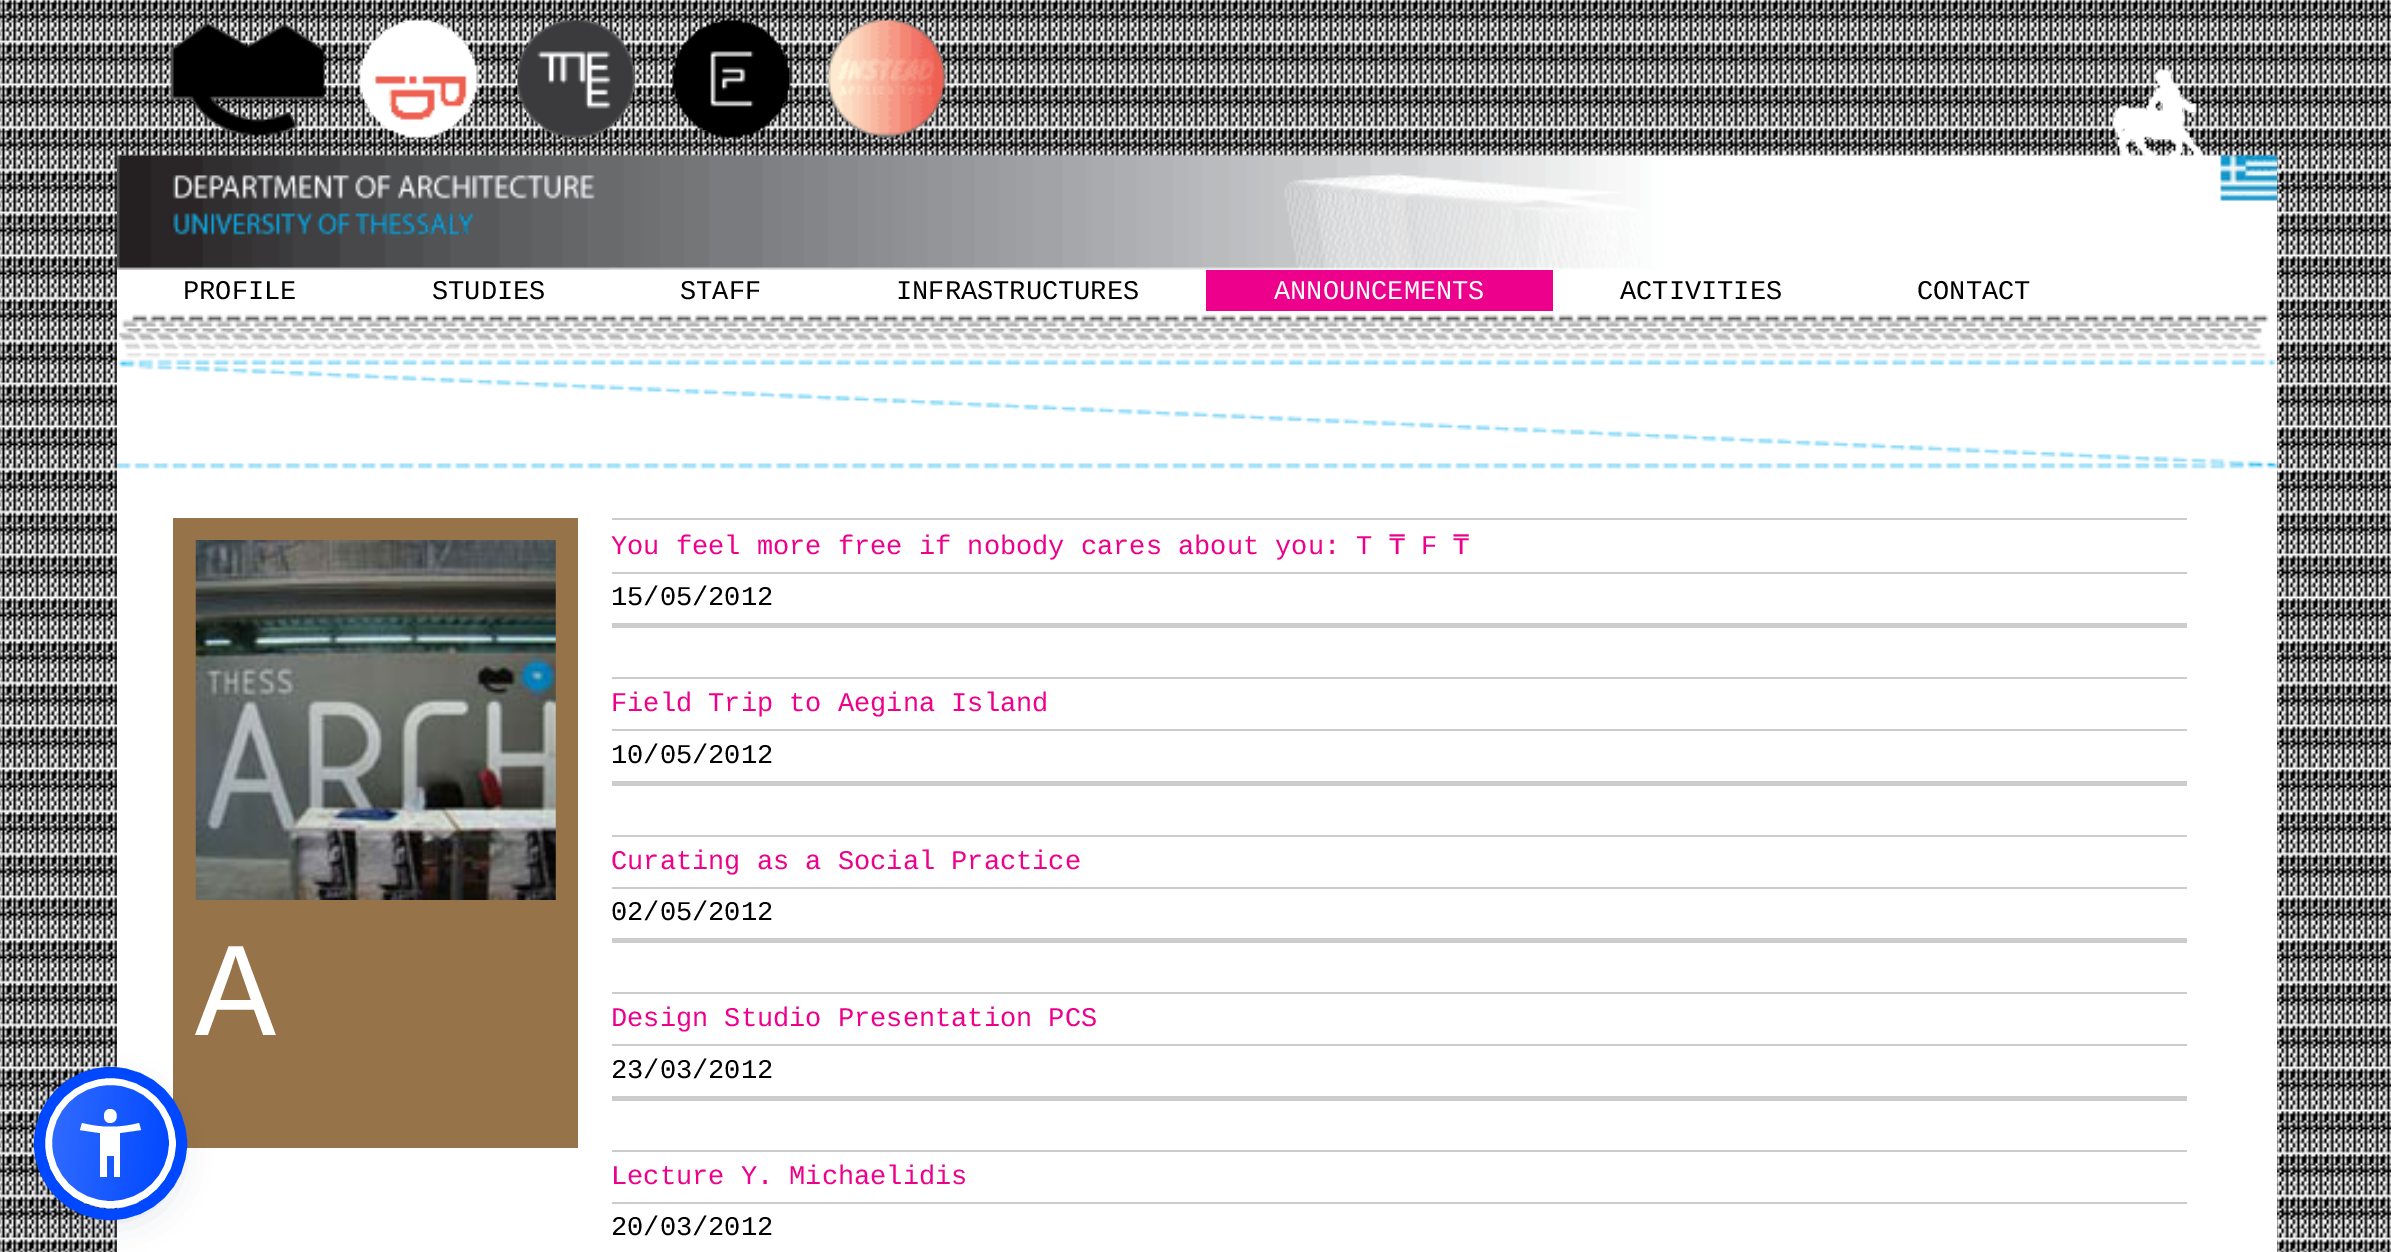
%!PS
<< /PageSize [2391 1252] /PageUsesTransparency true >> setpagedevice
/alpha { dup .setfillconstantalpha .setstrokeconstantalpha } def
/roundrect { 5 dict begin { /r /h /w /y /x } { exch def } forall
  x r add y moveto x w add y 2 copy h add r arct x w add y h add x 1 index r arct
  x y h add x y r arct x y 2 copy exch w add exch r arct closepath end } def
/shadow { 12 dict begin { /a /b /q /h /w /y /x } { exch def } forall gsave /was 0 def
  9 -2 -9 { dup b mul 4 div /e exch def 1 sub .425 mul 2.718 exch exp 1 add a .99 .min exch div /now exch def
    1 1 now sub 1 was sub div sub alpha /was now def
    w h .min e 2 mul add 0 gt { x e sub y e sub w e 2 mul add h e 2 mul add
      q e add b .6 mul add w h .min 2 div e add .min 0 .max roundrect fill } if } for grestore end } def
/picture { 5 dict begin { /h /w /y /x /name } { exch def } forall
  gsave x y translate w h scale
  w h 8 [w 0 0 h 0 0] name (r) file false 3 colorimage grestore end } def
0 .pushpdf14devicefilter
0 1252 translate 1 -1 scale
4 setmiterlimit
1 setgray
0 0 2391 1252 rectfill
(img1.rgb) 0 0 2391 1252 picture
117 270 2160 982 rectfill
0.588 0.451 0.282 setrgbcolor
173 518 405 630 rectfill
0.365 0.392 0.58 setrgbcolor
45 1082 131 131 65.5 4.5 0.2 shadow
0.145 0.173 0.38 setrgbcolor
45 1089 131 131 65.5 17 0.15 shadow
gsave
45 1078 131 130 65 roundrect clip newpath
gsave newpath 52 1085 moveto 169 1085 lineto 169 1202 lineto 52 1202 lineto closepath clip newpath
<< /ShadingType 2 /ColorSpace /DeviceRGB /Coords [46 1136 174 1150] /Extend [true true] /Function << /FunctionType 2 /Domain [0 1] /C0 [0.196 0.424 1] /C1 [0 0.282 1] /N 1 >> >> shfill grestore
grestore
1 setgray
7 setlinewidth
48.5 1081.5 124 123 61.5 roundrect stroke
0 0.282 1 setrgbcolor
11 setlinewidth
newpath 110.5 1143.5 71 0 360 arc closepath stroke
1 setgray
newpath 139 1123 moveto 121 1128 100 1128 82 1123 curveto 80 1130 lineto 86 1131 93 1132 100 1133 curveto 100 1177 lineto 107 1177 lineto 107 1156 lineto 114 1156 lineto 114 1177 lineto 120 1177 lineto 120 1133 lineto 127 1132 134 1131 141 1130 curveto closepath 110 1123 moveto 119 1123 119 1109 110 1109 curveto 102 1109 102 1123 110 1123 curveto closepath fill
(img2.rgb) 117 19 2160 251 picture
(img3.rgb) 117 314 2160 155 picture
/LiberationMono-Regular [27 0 0 -27 0 0] selectfont
0 setgray
183 299 moveto (PROFILE) show
432 299 moveto (STUDIES) show
680 299 moveto (STAFF) show
896 299 moveto (INFRASTRUCTURES) show
0.925 0 0.549 setrgbcolor
1206 270 347 41 rectfill
1 setgray
1274 299 moveto (ANNOUNCEMENTS) show
0 setgray
1620 299 moveto (ACTIVITIES) show
1917 299 moveto (CONTACT) show
(img4.rgb) 195 540 361 360 picture
/LiberationMono-Regular [135 0 0 -135 0 0] selectfont
1 setgray
195 1035 moveto (A) show
0.8 setgray
612 518 1575 2 rectfill
612 572 1575 2 rectfill
/LiberationMono-Regular [27 0 0 -27 0 0] selectfont
0.925 0 0.549 setrgbcolor
611 554 moveto (You feel more free if nobody cares about you: T) show
/DejaVuSansMono-Regular [27 0 0 -27 0 0] selectfont
1389 554 moveto (₸) show
/LiberationMono-Regular [27 0 0 -27 0 0] selectfont
1421 554 moveto (F) show
/DejaVuSansMono-Regular [27 0 0 -27 0 0] selectfont
1453 554 moveto (₸) show
0.8 setgray
612 623 1575 5 rectfill
/LiberationMono-Regular [27 0 0 -27 0 0] selectfont
0 setgray
611 605 moveto (15/05/2012) show
0.8 setgray
612 677 1575 2 rectfill
612 729 1575 2 rectfill
0.925 0 0.549 setrgbcolor
611 711 moveto (Field Trip to Aegina Island) show
0.8 setgray
612 781 1575 5 rectfill
0 setgray
611 763 moveto (10/05/2012) show
0.8 setgray
612 835 1575 2 rectfill
612 887 1575 2 rectfill
0.925 0 0.549 setrgbcolor
611 869 moveto (Curating as a Social Practice) show
0.8 setgray
612 938 1575 5 rectfill
0 setgray
611 920 moveto (02/05/2012) show
0.8 setgray
612 992 1575 2 rectfill
612 1044 1575 2 rectfill
0.925 0 0.549 setrgbcolor
611 1026 moveto (Design Studio Presentation PCS) show
0.8 setgray
612 1096 1575 5 rectfill
0 setgray
611 1078 moveto (23/03/2012) show
0.8 setgray
612 1150 1575 2 rectfill
612 1202 1575 2 rectfill
0.925 0 0.549 setrgbcolor
611 1184 moveto (Lecture Y. Michaelidis) show
0 setgray
611 1235 moveto (20/03/2012) show
.poppdf14devicefilter showpage
